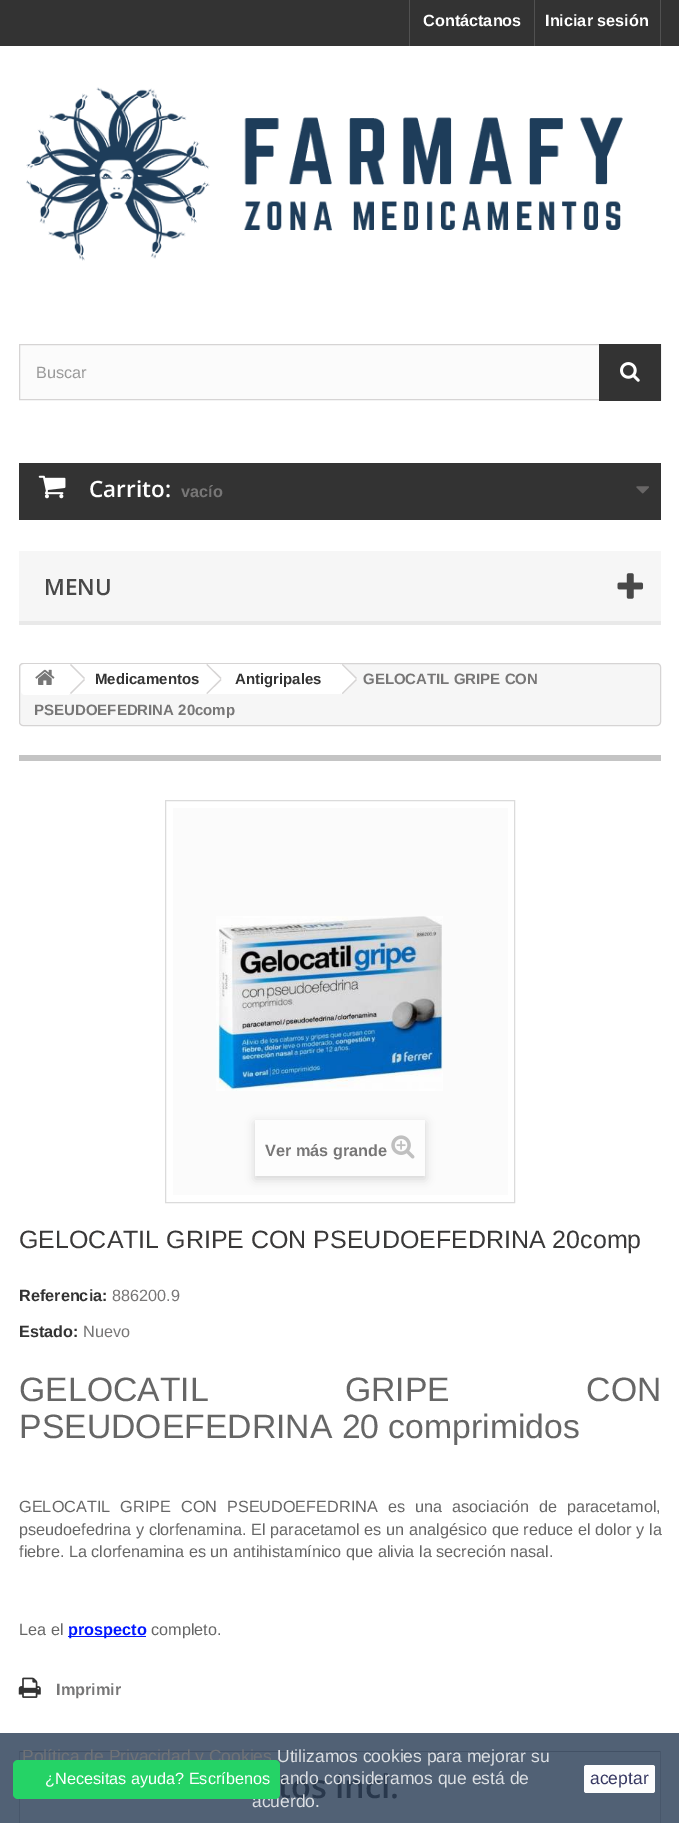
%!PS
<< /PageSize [679 1823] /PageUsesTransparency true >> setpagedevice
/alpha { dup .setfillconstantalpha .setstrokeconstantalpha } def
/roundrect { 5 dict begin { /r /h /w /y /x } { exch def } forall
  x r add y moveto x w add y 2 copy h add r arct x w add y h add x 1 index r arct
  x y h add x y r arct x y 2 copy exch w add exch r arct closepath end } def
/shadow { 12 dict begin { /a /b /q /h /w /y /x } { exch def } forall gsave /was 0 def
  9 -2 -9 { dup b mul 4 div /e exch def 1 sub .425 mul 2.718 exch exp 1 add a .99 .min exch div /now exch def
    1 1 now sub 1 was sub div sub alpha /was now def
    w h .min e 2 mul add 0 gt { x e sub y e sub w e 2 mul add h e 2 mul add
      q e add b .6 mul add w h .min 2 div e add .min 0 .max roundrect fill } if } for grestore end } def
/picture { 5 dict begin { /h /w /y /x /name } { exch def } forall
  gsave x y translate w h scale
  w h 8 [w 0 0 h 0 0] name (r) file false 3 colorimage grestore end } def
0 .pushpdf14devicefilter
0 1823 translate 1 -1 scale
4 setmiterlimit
1 setgray
0 0 679 1823 rectfill
0.318 0.38 0.459 setrgbcolor
0 1733 679 90 rectfill
0.2 setgray
0 0 679 46 rectfill
0.318 setgray
409 0 1 46 rectfill
/LiberationSans-Bold [16.25 0 0 -16.25 0 0] selectfont
1 setgray
423 26 moveto (Contáctanos) show
0.318 setgray
660 0 1 46 rectfill
534 0 1 46 rectfill
1 setgray
545 26 moveto (Iniciar sesión) show
(img1.rgb) 26 87 597 174 picture
0.984 setgray
20 345 579 54 rectfill
0.839 0.831 0.831 setrgbcolor
19.5 344.5 641 55 rectstroke
/LiberationSans-Regular [16.25 0 0 -16.25 0 0] selectfont
0.6 setgray
36 378 moveto (Buscar) show
0.2 setgray
599 344 62 57 rectfill
(img2.rgb) 620 362 20 20 picture
19 463 642 57 rectfill
(img3.rgb) 38 475 28 24 picture
/OpenSans-SemiBold [22.5 0 0 -22.5 0 0] selectfont
1 setgray
89 497 moveto (Carrito:) show
/LiberationSans-Bold [16.25 0 0 -16.25 0 0] selectfont
0.467 0.463 0.463 setrgbcolor
181 497 moveto (vacío) show
(img4.rgb) 636 486 13 8 picture
0.965 setgray
19 551 642 70 rectfill
0.914 setgray
19 621 642 4 rectfill
/OpenSans-SemiBold [22.5 0 0 -22.5 0 0] selectfont
0.282 setgray
44 595 moveto (MENU) show
(img5.rgb) 617 573 27 26 picture
0.965 setgray
19.5 663.5 641 62 3.5 roundrect gsave fill grestore
0.839 0.831 0.831 setrgbcolor
stroke
1 setgray
newpath 25 664 moveto 69 664 lineto 69 695 lineto 25 695 lineto 23 695 21 693 21 691 curveto 21 668 lineto 21 666 23 664 25 664 curveto closepath fill
(img6.rgb) 35 669 20 16 picture
69 664 139 30 rectfill
0.839 0.831 0.831 setrgbcolor
newpath 71 664 moveto 85 678 lineto 84 679 lineto 70 665 lineto closepath 84 679 moveto 85 680 lineto 71 694 lineto 70 693 lineto closepath fill
/LiberationSans-Bold [15 0 0 -15 0 0] selectfont
0.2 setgray
95 684 moveto (Medicamentos) show
1 setgray
newpath 220.5 665 moveto 233 677.5 lineto 234 678.5 234 680 233 681 curveto 220.5 693 lineto 219.5 694 218 694 217 693 curveto 204.5 681 lineto 203.5 680 203.5 678.5 204.5 677.5 curveto 217 665 lineto 218 664 219.5 664 220.5 665 curveto closepath fill
208 664 132 30 rectfill
0.839 0.831 0.831 setrgbcolor
newpath 207 664 moveto 221.5 678 lineto 220.5 679 lineto 206.5 665 lineto closepath 220.5 679 moveto 221.5 680 lineto 207 694 lineto 206.5 693 lineto closepath fill
0.2 setgray
235 684 moveto (Antigripales) show
1 setgray
newpath 343.5 665 moveto 356 677.5 lineto 357 678.5 357 680 356 681 curveto 343.5 693 lineto 342.5 694 341 694 340 693 curveto 327.5 681 lineto 326.5 680 326.5 678.5 327.5 677.5 curveto 340 665 lineto 341 664 342.5 664 343.5 665 curveto closepath fill
0.839 0.831 0.831 setrgbcolor
newpath 342.5 664 moveto 357 678 lineto 356 679 lineto 342 665 lineto closepath 356 679 moveto 357 680 lineto 342.5 694 lineto 342 693 lineto closepath fill
0.467 0.463 0.463 setrgbcolor
363 684 moveto (GELOCATIL GRIPE CON) show
34 715 moveto (PSEUDOEFEDRINA 20comp) show
0.769 setgray
19 755 642 6 rectfill
0.859 setgray
165.5 800.5 349 402 rectstroke
0.984 setgray
173 808 335 387 rectfill
(img7.rgb) 216 916 227 175 picture
0 setgray
255 1123 170 56 0 5 0.16 shadow
0.992 setgray
255 1120 170 56 rectfill
/LiberationSans-Bold [16.25 0 0 -16.25 0 0] selectfont
0.467 0.463 0.463 setrgbcolor
265 1156 moveto (Ver más grande) show
(img8.rgb) 391 1135 24 24 picture
/LiberationSans-Regular [25 0 0 -25 0 0] selectfont
0.227 0.224 0.224 setrgbcolor
19 1248 moveto (GELOCATIL GRIPE CON PSEUDOEFEDRINA 20comp) show
/LiberationSans-Bold [16.25 0 0 -16.25 0 0] selectfont
0.2 setgray
19 1301 moveto (Referencia:) show
/LiberationSans-Regular [16.25 0 0 -16.25 0 0] selectfont
0.467 0.463 0.463 setrgbcolor
112 1301 moveto (886200.9) show
/LiberationSans-Bold [16.25 0 0 -16.25 0 0] selectfont
0.2 setgray
19 1337 moveto (Estado:) show
/LiberationSans-Regular [16.25 0 0 -16.25 0 0] selectfont
0.467 0.463 0.463 setrgbcolor
83 1337 moveto (Nuevo) show
/LiberationSans-Regular [33.75 0 0 -33.75 0 0] selectfont
0.4 setgray
19 1401 moveto 127 0 32 (GELOCATIL GRIPE CON) widthshow
19 1438 moveto (PSEUDOEFEDRINA 20 comprimidos) show
/LiberationSans-Regular [16.25 0 0 -16.25 0 0] selectfont
19 1512 moveto 5.5 0 32 (GELOCATIL GRIPE CON PSEUDOEFEDRINA es una asociación de paracetamol,) widthshow
19 1535 moveto 0.25 0 32 (pseudoefedrina y clorfenamina. El paracetamol es un analgésico que reduce el dolor y la) widthshow
19 1557 moveto (fiebre. La clorfenamina es un antihistamínico que alivia la secreción nasal.) show
19 1635 moveto (Lea el) show
0 0.086 1 setrgbcolor
68 1636 78 1 rectfill
/LiberationSans-Bold [16.25 0 0 -16.25 0 0] selectfont
68 1635 moveto (prospecto) show
/LiberationSans-Regular [16.25 0 0 -16.25 0 0] selectfont
0.4 setgray
151 1635 moveto (completo.) show
(img9.rgb) 18 1677 23 21 picture
/LiberationSans-Bold [16.25 0 0 -16.25 0 0] selectfont
0.467 0.463 0.463 setrgbcolor
56 1695 moveto (Imprimir) show
0.259 0.318 0.396 setrgbcolor
19 1751 642 1 rectfill
0.282 0.341 0.42 setrgbcolor
660 1751 1 72 rectfill
19 1751 1 72 rectfill
/OpenSans-SemiBold [32.5 0 0 -32.5 0 0] selectfont
0.161 0.22 0.298 setrgbcolor
278 1798 moveto (tos incl.) show
/LiberationSans-Regular [17.5 0 0 -17.5 0 0] selectfont
0.435 0.447 0.463 setrgbcolor
22 1762 moveto (Política de Privacidad y Cookies) show
0.863 0.875 0.89 setrgbcolor
277 1762 moveto (Utilizamos cookies para mejorar su) show
280 1784 moveto (ando consideramos que está de) show
252 1807 moveto (acuerdo.) show
0.992 setgray
584 1765 71 28 2.5 roundrect fill
0.216 0.22 0.384 setrgbcolor
590 1784 moveto (aceptar) show
0.145 0.827 0.4 setrgbcolor
13 1760 267 39 5 roundrect fill
/LiberationSans-Regular [16.25 0 0 -16.25 0 0] selectfont
1 setgray
45 1784 moveto (¿Necesitas ayuda? Escríbenos) show
.poppdf14devicefilter showpage
